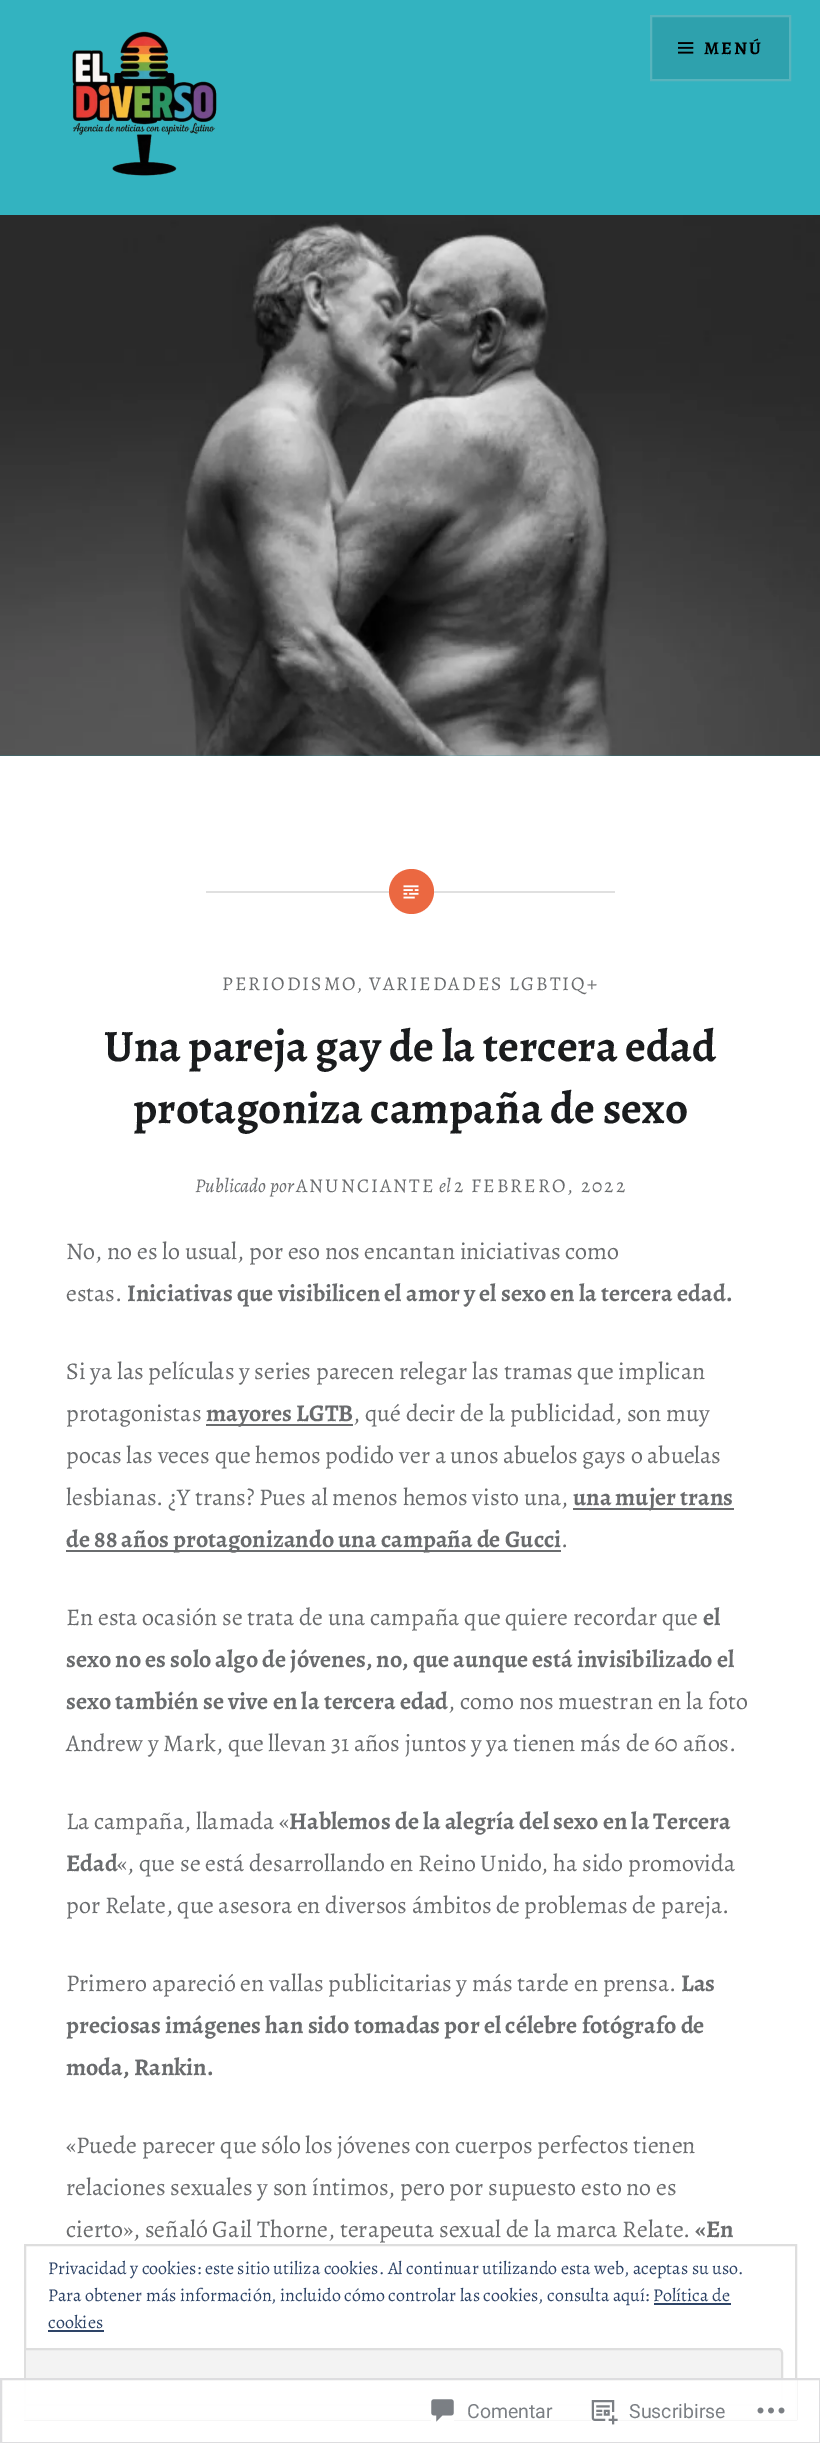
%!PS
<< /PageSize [820 2443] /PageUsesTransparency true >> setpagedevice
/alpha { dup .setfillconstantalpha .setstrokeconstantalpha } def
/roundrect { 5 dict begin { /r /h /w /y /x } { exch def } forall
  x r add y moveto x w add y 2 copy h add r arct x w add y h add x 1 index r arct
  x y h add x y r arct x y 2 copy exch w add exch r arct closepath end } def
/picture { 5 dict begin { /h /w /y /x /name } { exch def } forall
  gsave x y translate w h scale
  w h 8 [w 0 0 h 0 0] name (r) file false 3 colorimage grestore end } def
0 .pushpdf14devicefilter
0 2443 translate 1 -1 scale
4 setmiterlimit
1 setgray
0 0 820 2443 rectfill
0.2 0.702 0.753 setrgbcolor
0 0 820 215 rectfill
(img1.rgb) 72 31 145 145 picture
0.18 0.631 0.678 setrgbcolor
newpath 651 16 moveto 790 16 lineto 790 80 lineto 651 80 lineto closepath gsave fill grestore
0.345 0.706 0.741 setrgbcolor
2 setlinewidth
stroke
(img2.rgb) 678 42 16 12 picture
/Alegreya-Bold [18 0 0 -18 0 0] selectfont
0 setgray
704 54 moveto 2 0 (MENÚ) ashow
(img3.rgb) 0 215 820 541 picture
0.878 setgray
206 891 409 2 rectfill
0.922 0.408 0.255 setrgbcolor
newpath 411.5 891.5 22.5 0 360 arc closepath fill
(img4.rgb) 403 885 16 14 picture
/Alegreya-Regular [19.5 0 0 -19.5 0 0] selectfont
0.416 0.424 0.431 setrgbcolor
222 990 moveto 2 0 (PERIODISMO) ashow
/Alegreya-Italic [19.5 0 0 -19.5 0 0] selectfont
358 990 moveto 2 0 (,) ashow
/Alegreya-Regular [19.5 0 0 -19.5 0 0] selectfont
369 990 moveto 2 0 (VARIEDADES LGBTIQ+) ashow
/Alegreya-Bold [45 0 0 -45 0 0] selectfont
0.102 0.11 0.118 setrgbcolor
104 1061 moveto (Una pareja gay de la tercera edad) show
133 1123 moveto (protagoniza campaña de sexo) show
/Alegreya-Italic [19.5 0 0 -19.5 0 0] selectfont
0.416 0.424 0.431 setrgbcolor
195 1192 moveto (Publicado por) show
/Alegreya-Regular [19.5 0 0 -19.5 0 0] selectfont
296 1192 moveto 2 0 (ANUNCIANTE) ashow
/Alegreya-Italic [19.5 0 0 -19.5 0 0] selectfont
439 1192 moveto (el) show
/Alegreya-Regular [19.5 0 0 -19.5 0 0] selectfont
454 1192 moveto 2 0 (2 FEBRERO, 2022) ashow
/Alegreya-Regular [24 0 0 -24 0 0] selectfont
66 1259 moveto (No, no es lo usual, por eso nos encantan iniciativas como) show
66 1301 moveto (estas.) show
/Alegreya-Bold [24 0 0 -24 0 0] selectfont
127 1301 moveto (Iniciativas que visibilicen el amor y el sexo en la tercera edad.) show
/Alegreya-Regular [24 0 0 -24 0 0] selectfont
66 1379 moveto (Si ya las películas y series parecen relegar las tramas que implican) show
66 1421 moveto (protagonistas) show
206 1424 147 2 rectfill
/Alegreya-Bold [24 0 0 -24 0 0] selectfont
206 1421 moveto (mayores LGTB) show
/Alegreya-Regular [24 0 0 -24 0 0] selectfont
353 1421 moveto (, qué decir de la publicidad, son muy) show
66 1463 moveto (pocas las veces que hemos podido ver a unos abuelos gays o abuelas) show
66 1505 moveto (lesbianas. ¿Y trans? Pues al menos hemos visto una,) show
573 1508 161 2 rectfill
/Alegreya-Bold [24 0 0 -24 0 0] selectfont
573 1505 moveto (una mujer trans) show
66 1550 495 2 rectfill
66 1547 moveto (de 88 años protagonizando una campaña de Gucci) show
/Alegreya-Regular [24 0 0 -24 0 0] selectfont
561 1547 moveto (.) show
66 1625 moveto (En esta ocasión se trata de una campaña que quiere recordar que) show
/Alegreya-Bold [24 0 0 -24 0 0] selectfont
703 1625 moveto (el) show
66 1667 moveto (sexo no es solo algo de jóvenes, no, que aunque está invisibilizado el) show
66 1709 moveto (sexo también se vive en la tercera edad) show
/Alegreya-Regular [24 0 0 -24 0 0] selectfont
448 1709 moveto (, como nos muestran en la foto) show
66 1751 moveto (Andrew y Mark, que llevan 31 años juntos y ya tienen más de 60 años.) show
66 1829 moveto (La campaña, llamada «) show
/Alegreya-Bold [24 0 0 -24 0 0] selectfont
289 1829 moveto (Hablemos de la alegría del sexo en la Tercera) show
66 1871 moveto (Edad) show
/Alegreya-Regular [24 0 0 -24 0 0] selectfont
117 1871 moveto («, que se está desarrollando en Reino Unido, ha sido promovida) show
66 1913 moveto (por Relate, que asesora en diversos ámbitos de problemas de pareja.) show
66 1991 moveto (Primero apareció en vallas publicitarias y más tarde en prensa.) show
/Alegreya-Bold [24 0 0 -24 0 0] selectfont
681 1991 moveto (Las) show
66 2033 moveto (preciosas imágenes han sido tomadas por el célebre fotógrafo de) show
66 2075 moveto (moda, Rankin.) show
/Alegreya-Regular [24 0 0 -24 0 0] selectfont
66 2153 moveto («Puede parecer que sólo los jóvenes con cuerpos perfectos tienen) show
66 2195 moveto (relaciones sexuales y son íntimos, pero por supuesto esto no es) show
66 2237 moveto (cierto», señaló Gail Thorne, terapeuta sexual de la marca Relate.) show
/Alegreya-Bold [24 0 0 -24 0 0] selectfont
695 2237 moveto («En) show
0.871 setgray
25 2245 771 174 rectstroke
/Alegreya-Regular [18 0 0 -18 0 0] selectfont
0.18 0.267 0.404 setrgbcolor
48 2274 moveto (Privacidad y cookies: este sitio utiliza cookies. Al continuar utilizando esta web, aceptas su uso.) show
48 2301 moveto (Para obtener más información, incluido cómo controlar las cookies, consulta aquí: Política de) show
48 2328 moveto (cookies) show
654 2303 77 2 rectfill
48 2330 56 2 rectfill
0.953 setgray
newpath 26 2348 moveto 778 2348 lineto 781 2348 783 2350 783 2353 curveto 783 2401 lineto 783 2404 781 2406 778 2406 curveto 26 2406 lineto closepath fill
gsave
26 2246 769 172 rectclip
0.871 setgray
15 2349 767 56 4 roundrect stroke
grestore
0.98 alpha
1 setgray
24 2378 773 42 rectfill
0.863 0.863 0.871 setrgbcolor
1 2379 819 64 rectstroke
1 alpha
(img5.rgb) 431 2399 23 23 picture
/Roboto-Regular [19.5 0 0 -19.5 0 0] selectfont
0.482 0.498 0.518 setrgbcolor
467 2418 moveto (Comentar) show
(img6.rgb) 591 2400 27 25 picture
629 2418 moveto (Suscribirse) show
(img7.rgb) 757 2407 28 7 picture
.poppdf14devicefilter showpage
